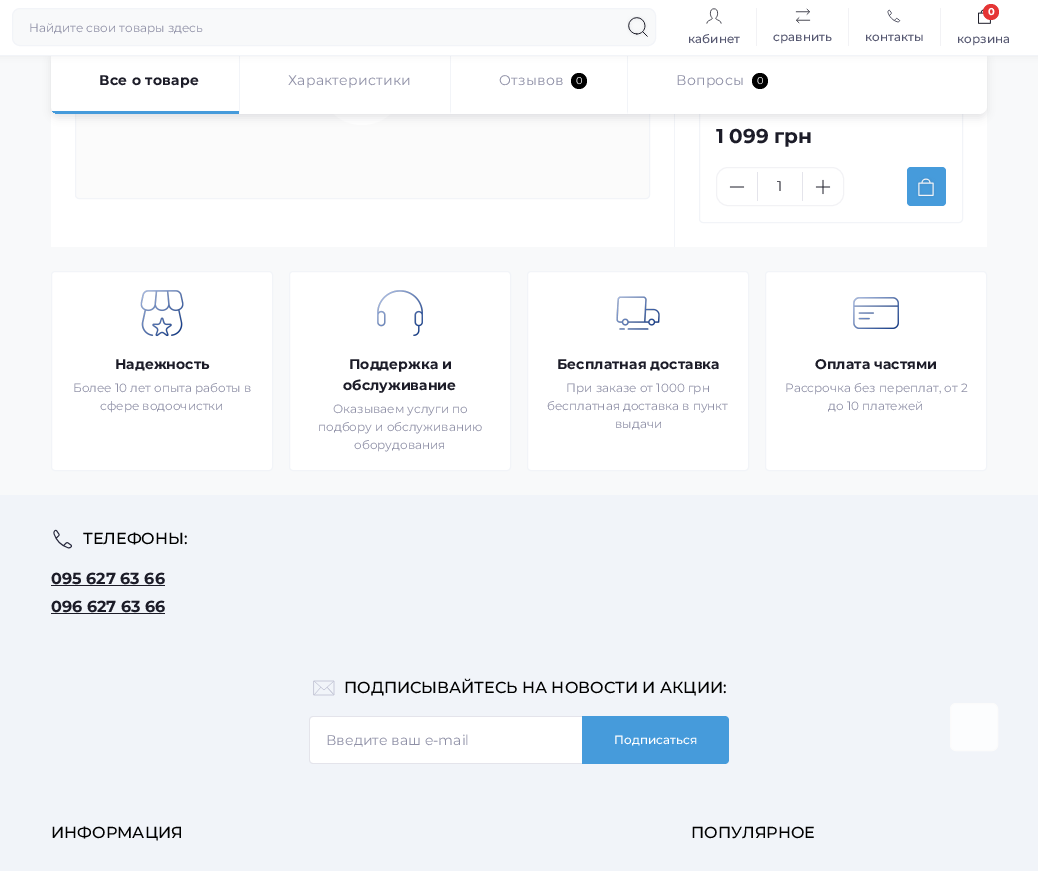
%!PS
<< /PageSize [1038 871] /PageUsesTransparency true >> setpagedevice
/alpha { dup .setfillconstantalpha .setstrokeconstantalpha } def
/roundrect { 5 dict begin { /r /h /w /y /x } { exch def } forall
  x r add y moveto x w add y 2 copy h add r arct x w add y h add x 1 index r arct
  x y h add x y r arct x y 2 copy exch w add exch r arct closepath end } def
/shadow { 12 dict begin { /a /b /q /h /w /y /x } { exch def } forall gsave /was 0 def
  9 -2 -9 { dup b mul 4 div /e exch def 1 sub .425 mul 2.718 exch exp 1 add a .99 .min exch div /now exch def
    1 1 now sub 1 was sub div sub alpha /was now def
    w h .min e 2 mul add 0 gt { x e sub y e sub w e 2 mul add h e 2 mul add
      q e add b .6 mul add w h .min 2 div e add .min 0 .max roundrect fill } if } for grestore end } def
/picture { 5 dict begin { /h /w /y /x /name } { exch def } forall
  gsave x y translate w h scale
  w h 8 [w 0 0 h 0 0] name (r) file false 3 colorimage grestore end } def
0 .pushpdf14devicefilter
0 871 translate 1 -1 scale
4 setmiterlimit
0.973 0.976 0.98 setrgbcolor
0 0 1038 871 rectfill
1 setgray
51 56 623 191 rectfill
0.949 0.957 0.973 setrgbcolor
674 114 1 133 rectfill
0.984 setgray
75.5 -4.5 574 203 3.5 roundrect gsave fill grestore
0.949 0.957 0.973 setrgbcolor
stroke
1 setgray
newpath 362 83 42 0 360 arc closepath fill
675 56 312 191 rectfill
0.949 0.957 0.973 setrgbcolor
699.5 -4.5 263 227 3.5 roundrect stroke
0.376 0.38 0.439 setrgbcolor
51 54 936 64 8 4 0.16 shadow
1 setgray
51 50 936 64 8 roundrect fill
0.949 0.957 0.973 setrgbcolor
newpath 239 114 moveto 239 50 lineto 240 50 lineto 240 111 lineto closepath fill
newpath 450 114 moveto 450 50 lineto 451 50 lineto 451 111 lineto closepath fill
newpath 627 114 moveto 627 50 lineto 628 50 lineto 628 111 lineto closepath fill
0.376 0.38 0.439 setrgbcolor
0 -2 1038 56 0 4 0.16 shadow
1 setgray
0 0 1038 55 rectfill
0.949 0.957 0.973 setrgbcolor
0 55 1038 1 rectfill
0.973 0.976 0.98 setrgbcolor
12.5 8.5 643 37 7.5 roundrect gsave fill grestore
0.949 0.957 0.973 setrgbcolor
stroke
/Montserrat-Regular [12 0 0 -12 0 0] selectfont
0.561 0.565 0.651 setrgbcolor
29 32 moveto (Найдите свои товары здесь) show
(img1.rgb) 627 16 21 21 picture
(img2.rgb) 706 8 16 16 picture
/Montserrat-Medium [12 0 0 -12 0 0] selectfont
0.333 0.341 0.439 setrgbcolor
688 43 moveto (кабинет) show
0.949 0.949 0.961 setrgbcolor
756 8 1 38 rectfill
(img3.rgb) 795 8 16 16 picture
0.333 0.341 0.439 setrgbcolor
773 41 moveto (сравнить) show
0.949 0.949 0.961 setrgbcolor
848 8 1 38 rectfill
(img4.rgb) 887 9 14 14 picture
0.333 0.341 0.439 setrgbcolor
865 41 moveto (контакты) show
0.949 0.949 0.961 setrgbcolor
940 8 1 38 rectfill
(img5.rgb) 978 9 13 15 picture
0.898 0.208 0.208 setrgbcolor
newpath 991 12 8 0 360 arc closepath fill
/Montserrat-Bold [10 0 0 -10 0 0] selectfont
1 setgray
988 15 moveto (0) show
/Montserrat-Medium [12 0 0 -12 0 0] selectfont
0.333 0.341 0.439 setrgbcolor
957 43 moveto (корзина) show
gsave
51 50 936 64 8 roundrect clip newpath
0.275 0.608 0.859 setrgbcolor
51 111 188 3 rectfill
grestore
/Montserrat-Bold [14 0 0 -14 0 0] selectfont
0.11 0.11 0.157 setrgbcolor
99 85 moveto 0.25 0 (Все о товаре) ashow
/Montserrat-Regular [14 0 0 -14 0 0] selectfont
0.561 0.565 0.651 setrgbcolor
288 85 moveto 0.25 0 (Характеристики) ashow
499 85 moveto 0.25 0 (Отзывов) ashow
0 setgray
newpath 579 81 8 0 360 arc closepath fill
/Montserrat-Regular [10 0 0 -10 0 0] selectfont
1 setgray
576 84 moveto (0) show
/Montserrat-Regular [14 0 0 -14 0 0] selectfont
0.561 0.565 0.651 setrgbcolor
676 85 moveto 0.25 0 (Вопросы) ashow
0 setgray
newpath 760 81 8 0 360 arc closepath fill
/Montserrat-Regular [10 0 0 -10 0 0] selectfont
1 setgray
757 84 moveto (0) show
/Montserrat-Bold [20 0 0 -20 0 0] selectfont
0.11 0.11 0.157 setrgbcolor
716 143 moveto (1 099 грн) show
0.949 0.949 0.961 setrgbcolor
716.5 167.5 127 38 11.5 roundrect stroke
(img6.rgb) 729 186 16 2 picture
0.894 0.894 0.922 setrgbcolor
802 172 1 29 rectfill
757 172 1 29 rectfill
/Montserrat-Regular [14 0 0 -14 0 0] selectfont
0.11 0.11 0.157 setrgbcolor
777 191 moveto (1) show
(img7.rgb) 815 179 16 16 picture
0.275 0.608 0.859 setrgbcolor
907 167 39 39 4 roundrect fill
(img8.rgb) 916 177 20 21 picture
1 setgray
51.5 271.5 221 199 3.5 roundrect gsave fill grestore
0.949 0.957 0.973 setrgbcolor
stroke
(img9.rgb) 140 290 44 47 picture
/Montserrat-Bold [14 0 0 -14 0 0] selectfont
0.11 0.11 0.157 setrgbcolor
115 369 moveto (Надежность) show
/Montserrat-Regular [12 0 0 -12 0 0] selectfont
0.561 0.565 0.651 setrgbcolor
73 392 moveto (Более 10 лет опыта работы в) show
100 410 moveto (сфере водоочистки) show
1 setgray
289.5 271.5 221 199 3.5 roundrect gsave fill grestore
0.949 0.957 0.973 setrgbcolor
stroke
(img10.rgb) 377 290 46 46 picture
/Montserrat-Bold [14 0 0 -14 0 0] selectfont
0.11 0.11 0.157 setrgbcolor
349 369 moveto (Поддержка и) show
343 390 moveto (обслуживание) show
/Montserrat-Regular [12 0 0 -12 0 0] selectfont
0.561 0.565 0.651 setrgbcolor
333 413 moveto (Оказываем услуги по) show
318 431 moveto (подбору и обслуживанию) show
354 449 moveto (оборудования) show
1 setgray
527.5 271.5 221 199 3.5 roundrect gsave fill grestore
0.949 0.957 0.973 setrgbcolor
stroke
(img11.rgb) 616 296 44 34 picture
/Montserrat-Bold [14 0 0 -14 0 0] selectfont
0.11 0.11 0.157 setrgbcolor
557 369 moveto (Бесплатная доставка) show
/Montserrat-Regular [12 0 0 -12 0 0] selectfont
0.561 0.565 0.651 setrgbcolor
566 392 moveto (При заказе от 1000 грн) show
547 410 moveto (бесплатная доставка в пункт) show
615 428 moveto (выдачи) show
1 setgray
765.5 271.5 221 199 3.5 roundrect gsave fill grestore
0.949 0.957 0.973 setrgbcolor
stroke
(img12.rgb) 853 297 46 32 picture
/Montserrat-Bold [14 0 0 -14 0 0] selectfont
0.11 0.11 0.157 setrgbcolor
815 369 moveto (Оплата частями) show
/Montserrat-Regular [12 0 0 -12 0 0] selectfont
0.561 0.565 0.651 setrgbcolor
785 392 moveto (Рассрочка без переплат, от 2) show
828 410 moveto (до 10 платежей) show
0.945 0.957 0.976 setrgbcolor
0 495 1038 376 rectfill
(img13.rgb) 53 529 19 20 picture
/Montserrat-Medium [16 0 0 -16 0 0] selectfont
0 setgray
83 544 moveto (ТЕЛЕФОНЫ:) show
/Montserrat-Bold [16 0 0 -16 0 0] selectfont
0.11 0.11 0.157 setrgbcolor
51 584 moveto (095 627 63 66) show
51 585 114 1 rectfill
51 612 moveto (096 627 63 66) show
51 613 114 1 rectfill
(img14.rgb) 313 680 22 16 picture
/Montserrat-Medium [16 0 0 -16 0 0] selectfont
0 setgray
344 693 moveto (ПОДПИСЫВАЙТЕСЬ НА НОВОСТИ И АКЦИИ:) show
1 setgray
newpath 313 717 moveto 583 717 lineto 583 763 lineto 313 763 lineto 311.5 763 310 761.5 310 760 curveto 310 720 lineto 310 718.5 311.5 717 313 717 curveto closepath fill
0.894 0.894 0.922 setrgbcolor
newpath 313 716 moveto 583 716 lineto 583 764 lineto 313 764 lineto 311 764 309 762 309 760 curveto 309 720 lineto 309 718 311 716 313 716 curveto closepath 313 717 moveto 583 717 lineto 583 763 lineto 313 763 lineto 311 763 310 762 310 760 curveto 310 720 lineto 310 718 311 717 313 717 curveto closepath eofill
/Montserrat-Regular [14 0 0 -14 0 0] selectfont
0.561 0.565 0.651 setrgbcolor
326 745 moveto (Введите ваш e-mail) show
0.275 0.608 0.859 setrgbcolor
newpath 582 716 moveto 725 716 lineto 727 716 729 718 729 720 curveto 729 760 lineto 729 762 727 764 725 764 curveto 582 764 lineto closepath fill
/Montserrat-Medium [12 0 0 -12 0 0] selectfont
1 setgray
614 744 moveto (Подписаться) show
/Montserrat-Medium [16 0 0 -16 0 0] selectfont
0 setgray
51 838 moveto (ИНФОРМАЦИЯ) show
691 838 moveto (ПОПУЛЯРНОЕ) show
0.988 0.992 0.996 setrgbcolor
950.5 703.5 47 47 5.5 roundrect gsave fill grestore
0.984 setgray
stroke
.poppdf14devicefilter showpage
